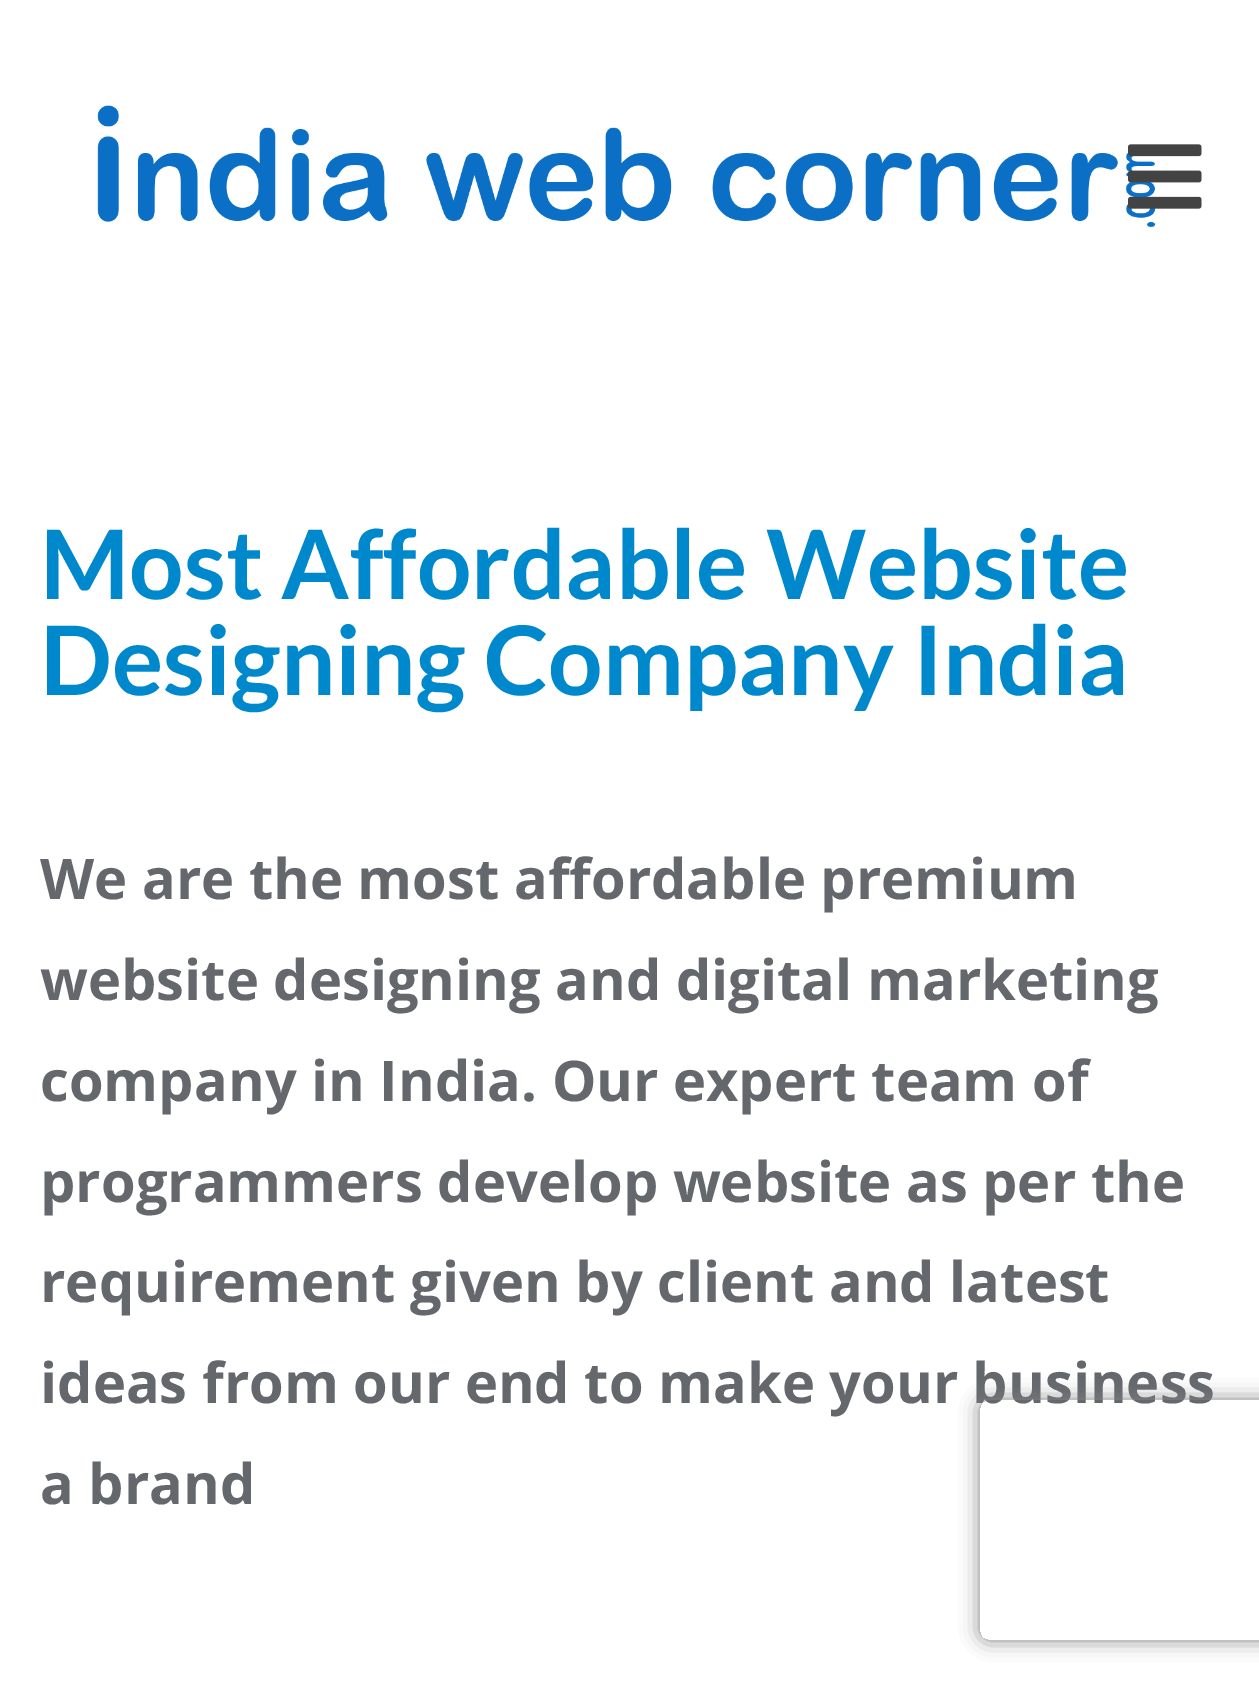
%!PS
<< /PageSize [1259 1693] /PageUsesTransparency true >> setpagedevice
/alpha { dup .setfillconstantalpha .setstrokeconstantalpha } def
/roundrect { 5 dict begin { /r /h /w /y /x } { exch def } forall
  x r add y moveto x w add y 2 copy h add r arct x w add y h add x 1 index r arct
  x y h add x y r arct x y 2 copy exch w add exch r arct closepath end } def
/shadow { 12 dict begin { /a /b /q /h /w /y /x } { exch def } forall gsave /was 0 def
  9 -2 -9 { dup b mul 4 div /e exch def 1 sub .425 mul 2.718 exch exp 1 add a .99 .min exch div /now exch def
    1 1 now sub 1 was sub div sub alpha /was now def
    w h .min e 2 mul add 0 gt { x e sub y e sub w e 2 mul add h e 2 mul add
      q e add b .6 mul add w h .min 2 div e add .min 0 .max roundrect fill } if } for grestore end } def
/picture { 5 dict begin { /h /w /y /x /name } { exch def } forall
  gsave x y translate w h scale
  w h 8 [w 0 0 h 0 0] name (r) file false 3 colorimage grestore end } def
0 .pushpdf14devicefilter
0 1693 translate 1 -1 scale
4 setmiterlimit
1 setgray
0 0 1259 1693 rectfill
(img1.rgb) 97 105 1059 123 picture
(img2.rgb) 1128 144 74 65 picture
/Lato-Bold [96 0 0 -96 0 0] selectfont
0 0.533 0.8 setrgbcolor
40 599 moveto (Most Affordable Website) show
40 695 moveto (Designing Company India) show
/OpenSans-Bold [56 0 0 -56 0 0] selectfont
0.392 0.408 0.427 setrgbcolor
40 899 moveto (We are the most affordable premium) show
40 1000 moveto (website designing and digital marketing) show
40 1101 moveto (company in India. Our expert team of) show
40 1202 moveto (programmers develop website as per the) show
40 1302 moveto (requirement given by client and latest) show
40 1403 moveto (ideas from our end to make your business) show
40 1504 moveto (a brand) show
gsave
newpath 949 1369 moveto 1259 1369 lineto 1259 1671 lineto 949 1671 lineto closepath 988 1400 moveto 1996 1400 lineto 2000.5 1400 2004 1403.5 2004 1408 curveto 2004 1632 lineto 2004 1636.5 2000.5 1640 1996 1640 curveto 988 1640 lineto 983.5 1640 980 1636.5 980 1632 curveto 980 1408 lineto 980 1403.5 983.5 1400 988 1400 curveto closepath eoclip newpath
0.502 setgray
980 1400 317 240 8 10 1 shadow
grestore
.poppdf14devicefilter showpage
